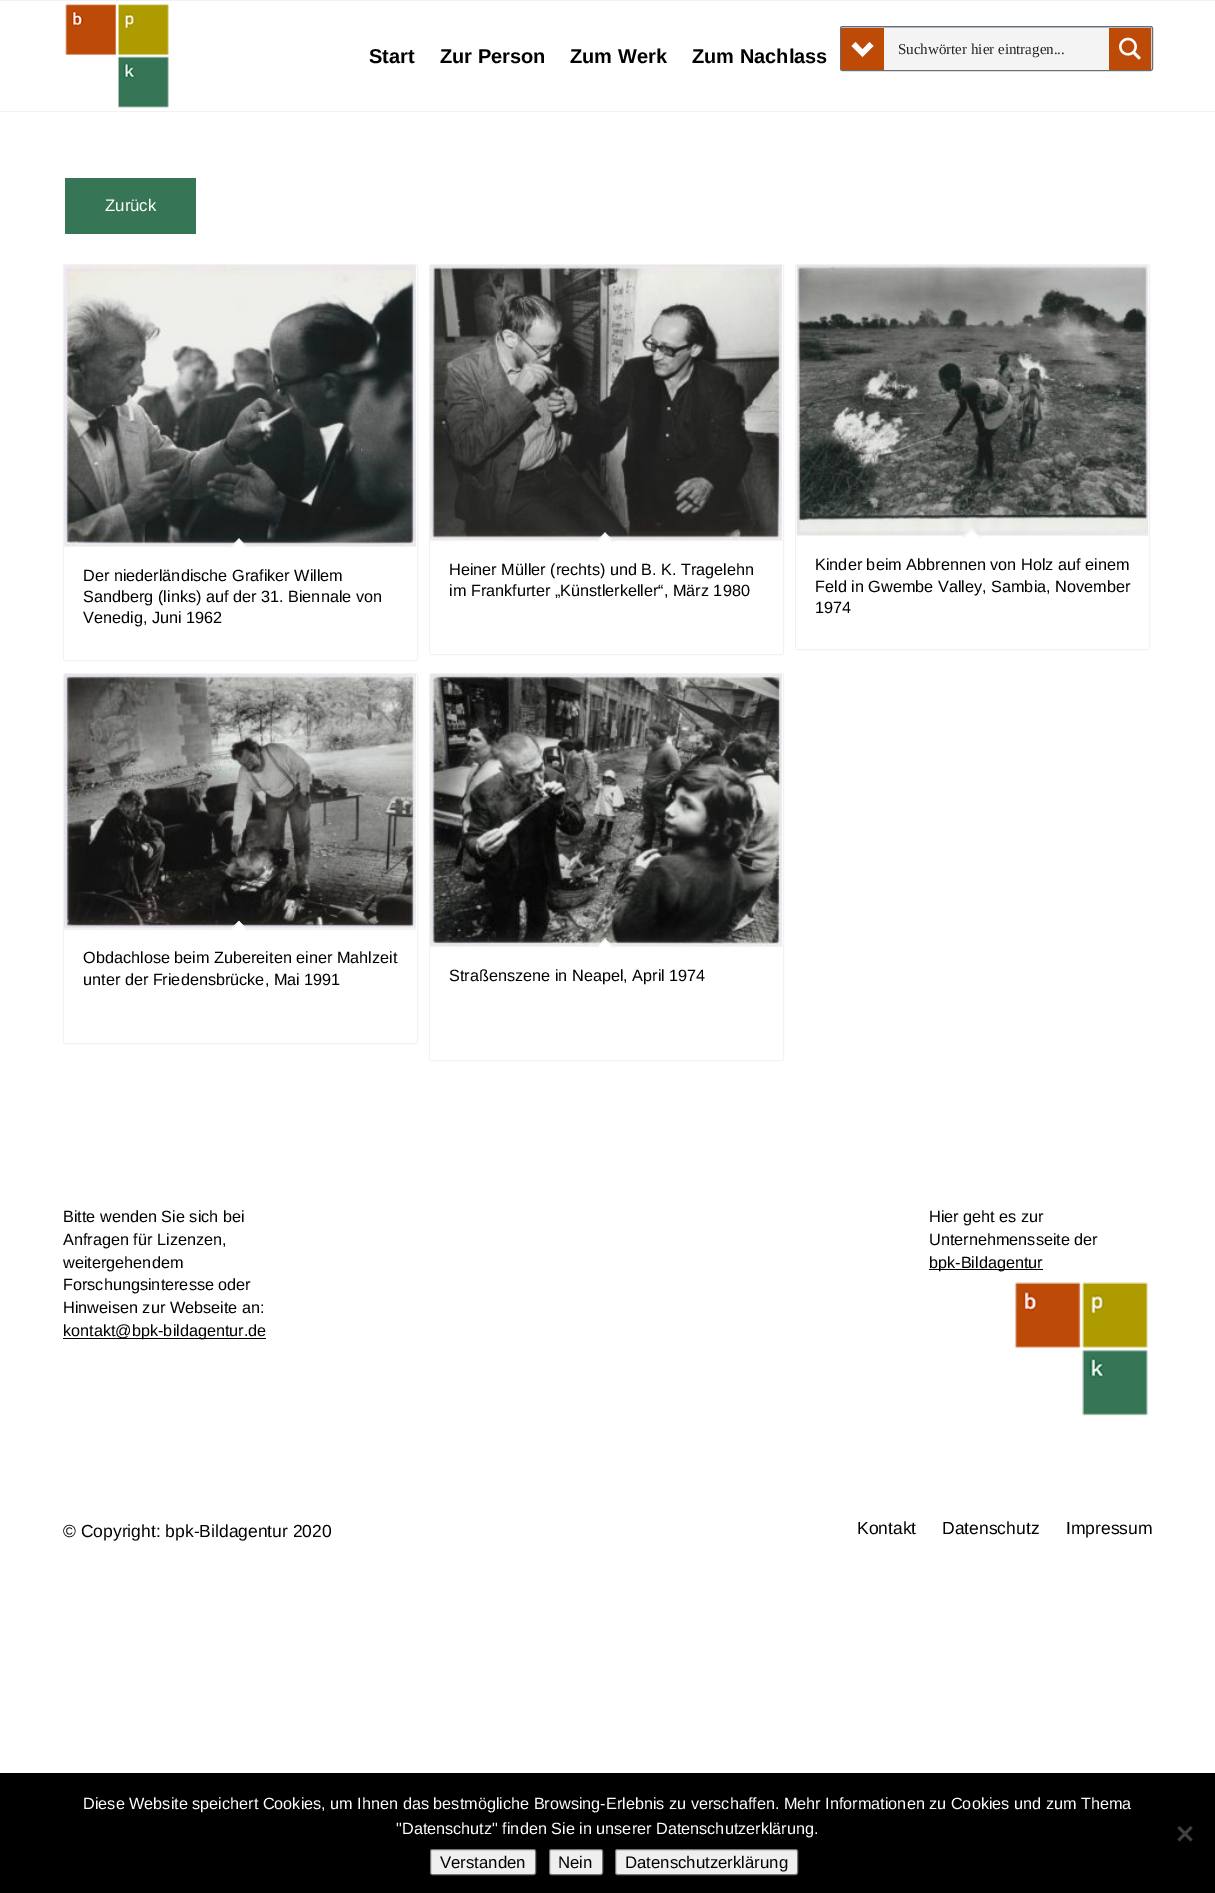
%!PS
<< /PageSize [1215 1893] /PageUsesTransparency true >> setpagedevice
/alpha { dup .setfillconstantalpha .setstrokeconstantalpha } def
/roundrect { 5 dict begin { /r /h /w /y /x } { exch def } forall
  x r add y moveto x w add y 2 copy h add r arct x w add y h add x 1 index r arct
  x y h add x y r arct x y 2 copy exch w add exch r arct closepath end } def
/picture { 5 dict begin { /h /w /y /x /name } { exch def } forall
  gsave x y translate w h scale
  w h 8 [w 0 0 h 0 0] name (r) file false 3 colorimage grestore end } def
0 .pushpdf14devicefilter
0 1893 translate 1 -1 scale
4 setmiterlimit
1 setgray
0 0 1215 1893 rectfill
0.949 setgray
0 0 1215 1 rectfill
0 111 1215 1 rectfill
(img1.rgb) 65 4 104 104 picture
/LiberationSans-Bold [20 0 0 -20 0 0] selectfont
0 setgray
369 63 moveto (Start) show
440 63 moveto (Zur Person) show
570 63 moveto (Zum Werk) show
692 63 moveto (Zum Nachlass) show
0.82 0.918 1 setrgbcolor
840 26 313 45 2.5 roundrect fill
0.38 alpha
0.694 setgray
840 26 313 45 2.5 roundrect fill
0.48 alpha
0 setgray
840.5 26.5 312 44 2 roundrect stroke
1 alpha
1 setgray
841 28 310 42 1 roundrect fill
0.09 alpha
0.514 0.525 0.529 setrgbcolor
841 28 310 42 rectfill
1 alpha
0.741 0.294 0.027 setrgbcolor
newpath 842 28 moveto 884 28 lineto 884 70 lineto 842 70 lineto 841.5 70 841 69.5 841 69 curveto 841 29 lineto 841 28.5 841.5 28 842 28 curveto closepath fill
1 setgray
newpath 851.5 46 moveto 855.5 42 lineto 862.5 49.5 lineto 869.5 42 lineto 873.5 46 lineto 862.5 57 lineto closepath fill
/LiberationSerif-Regular [15 0 0 -15 0 0] selectfont
0.145 setgray
898 54 moveto (Suchwörter hier eintragen...) show
0.741 0.294 0.027 setrgbcolor
newpath 1109 28 moveto 1150 28 lineto 1150.5 28 1151 28.5 1151 29 curveto 1151 69 lineto 1151 69.5 1150.5 70 1150 70 curveto 1109 70 lineto closepath fill
(img2.rgb) 1119 37 22 23 picture
0.212 0.463 0.337 setrgbcolor
65 178 131 56 rectfill
/LiberationSans-Regular [16.75 0 0 -16.75 0 0] selectfont
1 setgray
105 211 moveto (Zurück) show
0.949 setgray
63.5 264.5 354 396 2 roundrect stroke
(img3.rgb) 64 265 352 281 picture
1 setgray
newpath 64 546 moveto 416 546 lineto 416 659 lineto 416 659.5 415.5 660 415 660 curveto 65 660 lineto 64.5 660 64 659.5 64 659 curveto closepath fill
0.949 setgray
64 546 352 1 rectfill
1 setgray
newpath 239 538.5 moveto 247.5 547.5 lineto 239 556 lineto 230 547.5 lineto closepath fill
0.949 setgray
newpath 239 538.5 moveto 247.5 547.5 lineto 247 548 lineto 238 539.5 lineto closepath fill
newpath 239 538.5 moveto 240 539.5 lineto 231 548 lineto 230 547.5 lineto closepath fill
/LiberationSans-Regular [16.25 0 0 -16.25 0 0] selectfont
0 setgray
83 581 moveto (Der niederländische Grafiker Willem) show
83 602 moveto (Sandberg \(links\) auf der 31. Biennale von) show
83 623 moveto (Venedig, Juni 1962) show
0.949 setgray
429.5 264.5 354 390 2 roundrect stroke
(img4.rgb) 430 265 352 275 picture
1 setgray
newpath 430 540 moveto 783 540 lineto 783 653 lineto 783 653.5 782.5 654 782 654 curveto 431 654 lineto 430.5 654 430 653.5 430 653 curveto closepath fill
0.949 setgray
430 540 353 1 rectfill
1 setgray
newpath 605 532.5 moveto 614 541.5 lineto 605 550.5 lineto 596.5 541.5 lineto closepath fill
0.949 setgray
newpath 605 532.5 moveto 614 541.5 lineto 613 542.5 lineto 604.5 533.5 lineto closepath fill
newpath 605 532.5 moveto 606 533.5 lineto 597 542.5 lineto 596.5 541.5 lineto closepath fill
0 setgray
449 575 moveto (Heiner Müller \(rechts\) und B. K. Tragelehn) show
449 596 moveto (im Frankfurter „Künstlerkeller“, März 1980) show
0.949 setgray
795.5 264.5 354 385 2 roundrect stroke
(img5.rgb) 796 265 353 270 picture
1 setgray
newpath 796 535 moveto 1149 535 lineto 1149 648 lineto 1149 648.5 1148.5 649 1148 649 curveto 797 649 lineto 796.5 649 796 648.5 796 648 curveto closepath fill
0.949 setgray
796 535 353 1 rectfill
1 setgray
newpath 971.5 528 moveto 980 536.5 lineto 971.5 545.5 lineto 962.5 536.5 lineto closepath fill
0.949 setgray
newpath 971.5 528 moveto 980 536.5 lineto 979.5 537.5 lineto 970.5 529 lineto closepath fill
newpath 971.5 528 moveto 972.5 529 lineto 963.5 537.5 lineto 962.5 536.5 lineto closepath fill
0 setgray
815 570 moveto (Kinder beim Abbrennen von Holz auf einem) show
815 592 moveto (Feld in Gwembe Valley, Sambia, November) show
815 613 moveto (1974) show
0.949 setgray
63.5 673.5 354 370 2 roundrect stroke
(img6.rgb) 64 674 352 255 picture
1 setgray
newpath 64 929 moveto 416 929 lineto 416 1042 lineto 416 1042.5 415.5 1043 415 1043 curveto 65 1043 lineto 64.5 1043 64 1042.5 64 1042 curveto closepath fill
0.949 setgray
64 929 352 1 rectfill
1 setgray
newpath 239 921 moveto 247.5 929.5 lineto 239 938.5 lineto 230 929.5 lineto closepath fill
0.949 setgray
newpath 239 921 moveto 247.5 929.5 lineto 247 930.5 lineto 238 921.5 lineto closepath fill
newpath 239 921 moveto 240 921.5 lineto 231 930.5 lineto 230 929.5 lineto closepath fill
0 setgray
83 963 moveto (Obdachlose beim Zubereiten einer Mahlzeit) show
83 985 moveto (unter der Friedensbrücke, Mai 1991) show
0.949 setgray
429.5 673.5 354 387 2 roundrect stroke
(img7.rgb) 430 674 352 272 picture
1 setgray
newpath 430 946 moveto 783 946 lineto 783 1059 lineto 783 1059.5 782.5 1060 782 1060 curveto 431 1060 lineto 430.5 1060 430 1059.5 430 1059 curveto closepath fill
0.949 setgray
430 946 353 1 rectfill
1 setgray
newpath 605 938.5 moveto 614 947.5 lineto 605 956 lineto 596.5 947.5 lineto closepath fill
0.949 setgray
newpath 605 938.5 moveto 614 947.5 lineto 613 948 lineto 604.5 939.5 lineto closepath fill
newpath 605 938.5 moveto 606 939.5 lineto 597 948 lineto 596.5 947.5 lineto closepath fill
0 setgray
449 981 moveto (Straßenszene in Neapel, April 1974) show
63 1222 moveto (Bitte wenden Sie sich bei) show
63 1245 moveto (Anfragen für Lizenzen,) show
63 1268 moveto (weitergehendem) show
63 1290 moveto (Forschungsinteresse oder) show
63 1313 moveto (Hinweisen zur Webseite an:) show
63 1338 203 1 rectfill
63 1336 moveto (kontakt@bpk-bildagentur.de) show
929 1222 moveto (Hier geht es zur) show
929 1245 moveto (Unternehmensseite der) show
929 1269 114 1 rectfill
929 1268 moveto (bpk-Bildagentur) show
(img8.rgb) 1014 1282 134 134 picture
/LiberationSans-Regular [17.5 0 0 -17.5 0 0] selectfont
63 1537 moveto (© Copyright: bpk-Bildagentur 2020) show
857 1534 moveto (Kontakt) show
942 1534 moveto (Datenschutz) show
1066 1534 moveto (Impressum) show
0 1773 1215 120 rectfill
/LiberationSans-Regular [16.25 0 0 -16.25 0 0] selectfont
1 setgray
83 1809 moveto (Diese Website speichert Cookies, um Ihnen das bestmögliche Browsing-Erlebnis zu verschaffen. Mehr Informationen zu Cookies und zum Thema) show
396 1834 moveto ("Datenschutz" finden Sie in unserer Datenschutzerklärung.) show
0.251 setgray
newpath 1190.5 1826 moveto 1192.5 1828 lineto 1179.5 1841.5 lineto 1177.5 1839.5 lineto closepath fill
newpath 1177.5 1828 moveto 1179.5 1826 lineto 1192.5 1839.5 lineto 1190.5 1841.5 lineto closepath fill
0.937 setgray
430.5 1849.5 105 25 2 roundrect gsave fill grestore
0.463 setgray
stroke
/LiberationSans-Regular [16.75 0 0 -16.75 0 0] selectfont
0 setgray
440 1868 moveto (Verstanden) show
0.937 setgray
549.5 1849.5 53 25 2 roundrect gsave fill grestore
0.463 setgray
stroke
0 setgray
558 1868 moveto (Nein) show
0.937 setgray
615.5 1849.5 182 25 2 roundrect gsave fill grestore
0.463 setgray
stroke
0 setgray
625 1868 moveto (Datenschutzerklärung) show
.poppdf14devicefilter showpage
